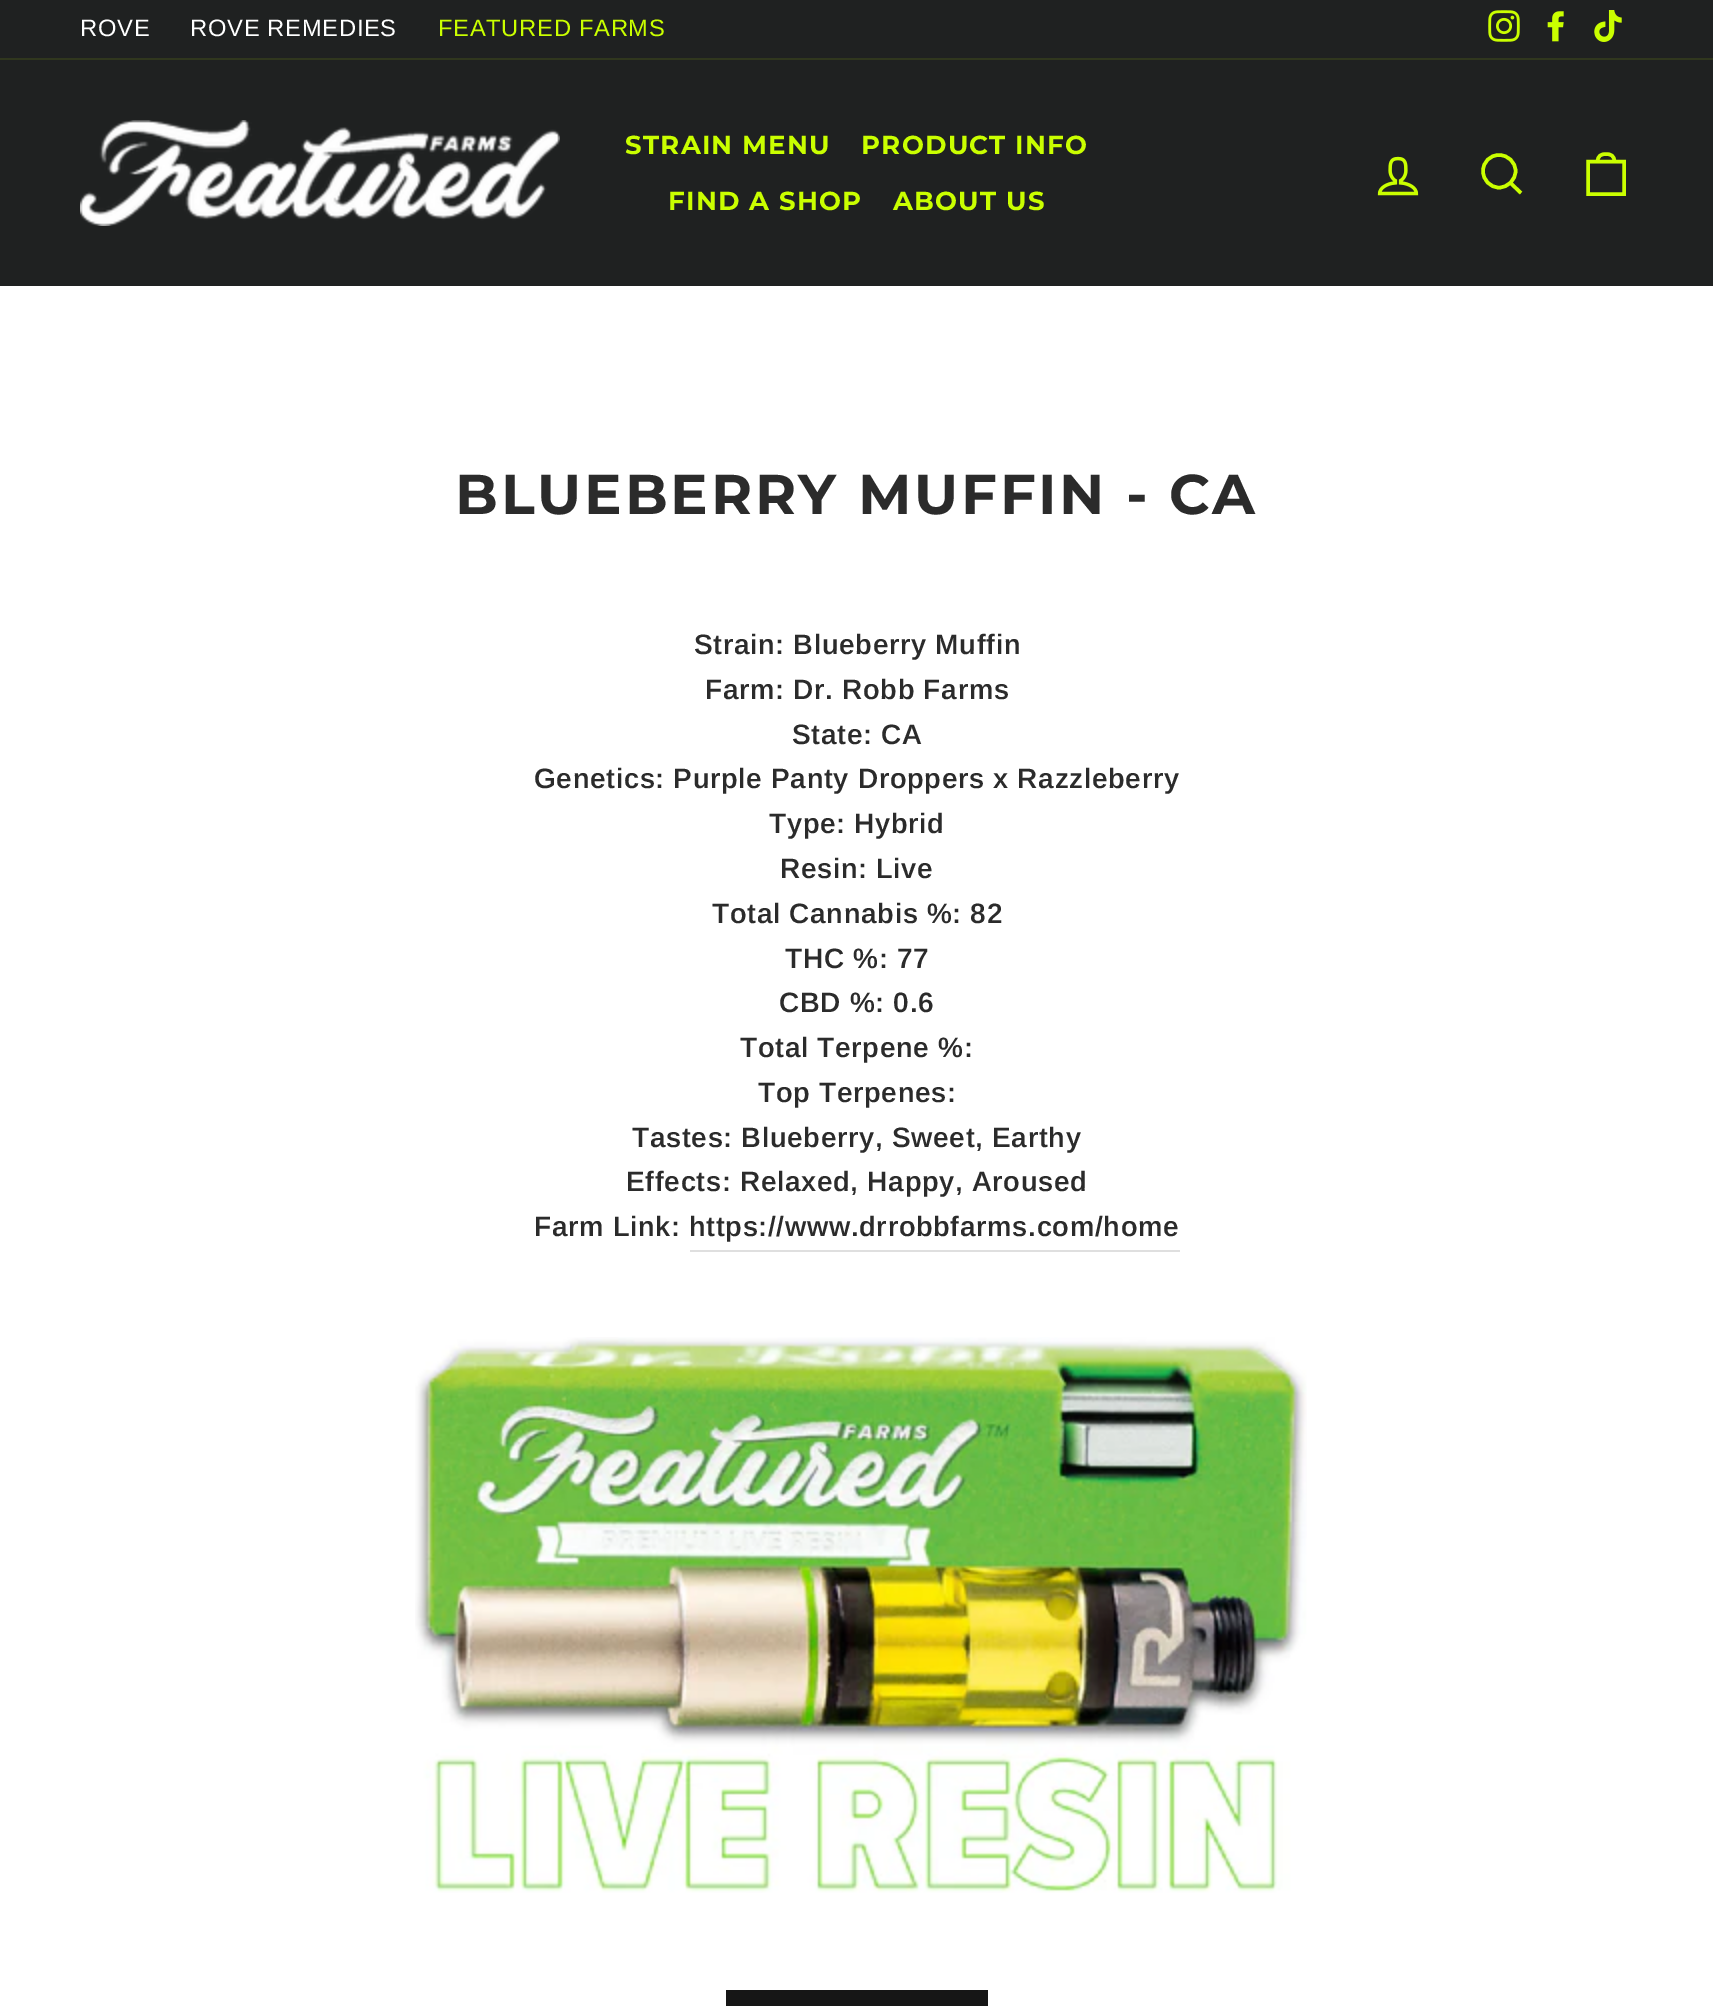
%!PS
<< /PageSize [1713 2006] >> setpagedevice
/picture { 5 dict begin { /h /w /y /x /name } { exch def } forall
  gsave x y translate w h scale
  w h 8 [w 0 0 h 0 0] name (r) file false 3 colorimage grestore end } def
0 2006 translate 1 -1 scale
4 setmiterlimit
1 setgray
0 0 1713 2006 rectfill
0.122 0.129 0.129 setrgbcolor
0 0 1713 58 rectfill
/Arimo-Regular [23.75 0 0 -23.75 0 0] selectfont
1 setgray
80 36 moveto 0.7 0 (ROVE) ashow
190 36 moveto 0.7 0 (ROVE REMEDIES) ashow
0.792 1 0 setrgbcolor
438 36 moveto 0.7 0 (FEATURED FARMS) ashow
(img1.rgb) 1488 10 32 32 picture
(img2.rgb) 1547 11 17 31 picture
(img3.rgb) 1594 10 28 32 picture
0.122 0.129 0.129 setrgbcolor
0 60 1713 226 rectfill
0.188 0.216 0.118 setrgbcolor
0 58 1713 2 rectfill
(img4.rgb) 80 120 480 106 picture
/Montserrat-Bold [26 0 0 -26 0 0] selectfont
0.792 1 0 setrgbcolor
625 154 moveto 1.25 0 (STRAIN MENU) ashow
861 154 moveto 1.25 0 (PRODUCT INFO) ashow
668 210 moveto 1.25 0 (FIND A SHOP) ashow
893 210 moveto 1.25 0 (ABOUT US) ashow
(img5.rgb) 1377 156 42 40 picture
3.5 setlinewidth
newpath 1515.5 171 moveto 1515.5 180 1508 187.5 1499 187.5 curveto 1490 187.5 1483 180 1483 171 curveto 1483 162 1490 155 1499 155 curveto 1508 155 1515.5 162 1515.5 171 curveto closepath 1521 193 moveto 1510.5 183 lineto stroke
newpath 1588 161.5 moveto 1624 161.5 lineto 1624 194 lineto 1588 194 lineto closepath 1597.5 162 moveto 1597.5 155.5 1601.5 154 1606 154 curveto 1610.5 154 1614.5 155.5 1614.5 162 curveto stroke
/Montserrat-Bold [56 0 0 -56 0 0] selectfont
0.169 setgray
455 514 moveto 2.8 0 (BLUEBERRY MUFFIN - CA) ashow
/Arimo-SemiBold [28 0 0 -28 0 0] selectfont
694 654 moveto 0.7 0 (Strain: Blueberry Muffin) ashow
705 699 moveto 0.7 0 (Farm: Dr. Robb Farms) ashow
792 744 moveto 0.7 0 (State: CA) ashow
534 788 moveto 0.7 0 (Genetics: Purple Panty Droppers x Razzleberry) ashow
769 833 moveto 0.7 0 (Type: Hybrid) ashow
780 878 moveto 0.7 0 (Resin: Live) ashow
712 923 moveto 0.7 0 (Total Cannabis %: 82) ashow
785 968 moveto 0.7 0 (THC %: 77) ashow
779 1012 moveto 0.7 0 (CBD %: 0.6) ashow
740 1057 moveto 0.7 0 (Total Terpene %:) ashow
758 1102 moveto 0.7 0 (Top Terpenes:) ashow
632 1147 moveto 0.7 0 (Tastes: Blueberry, Sweet, Earthy) ashow
626 1191 moveto 0.7 0 (Effects: Relaxed, Happy, Aroused) ashow
534 1236 moveto 0.7 0 (Farm Link: https://www.drrobbfarms.com/home) ashow
0.875 setgray
690 1250 490 2 rectfill
(img6.rgb) 415 1337 892 556 picture
0.086 setgray
726 1990 262 16 rectfill
showpage
